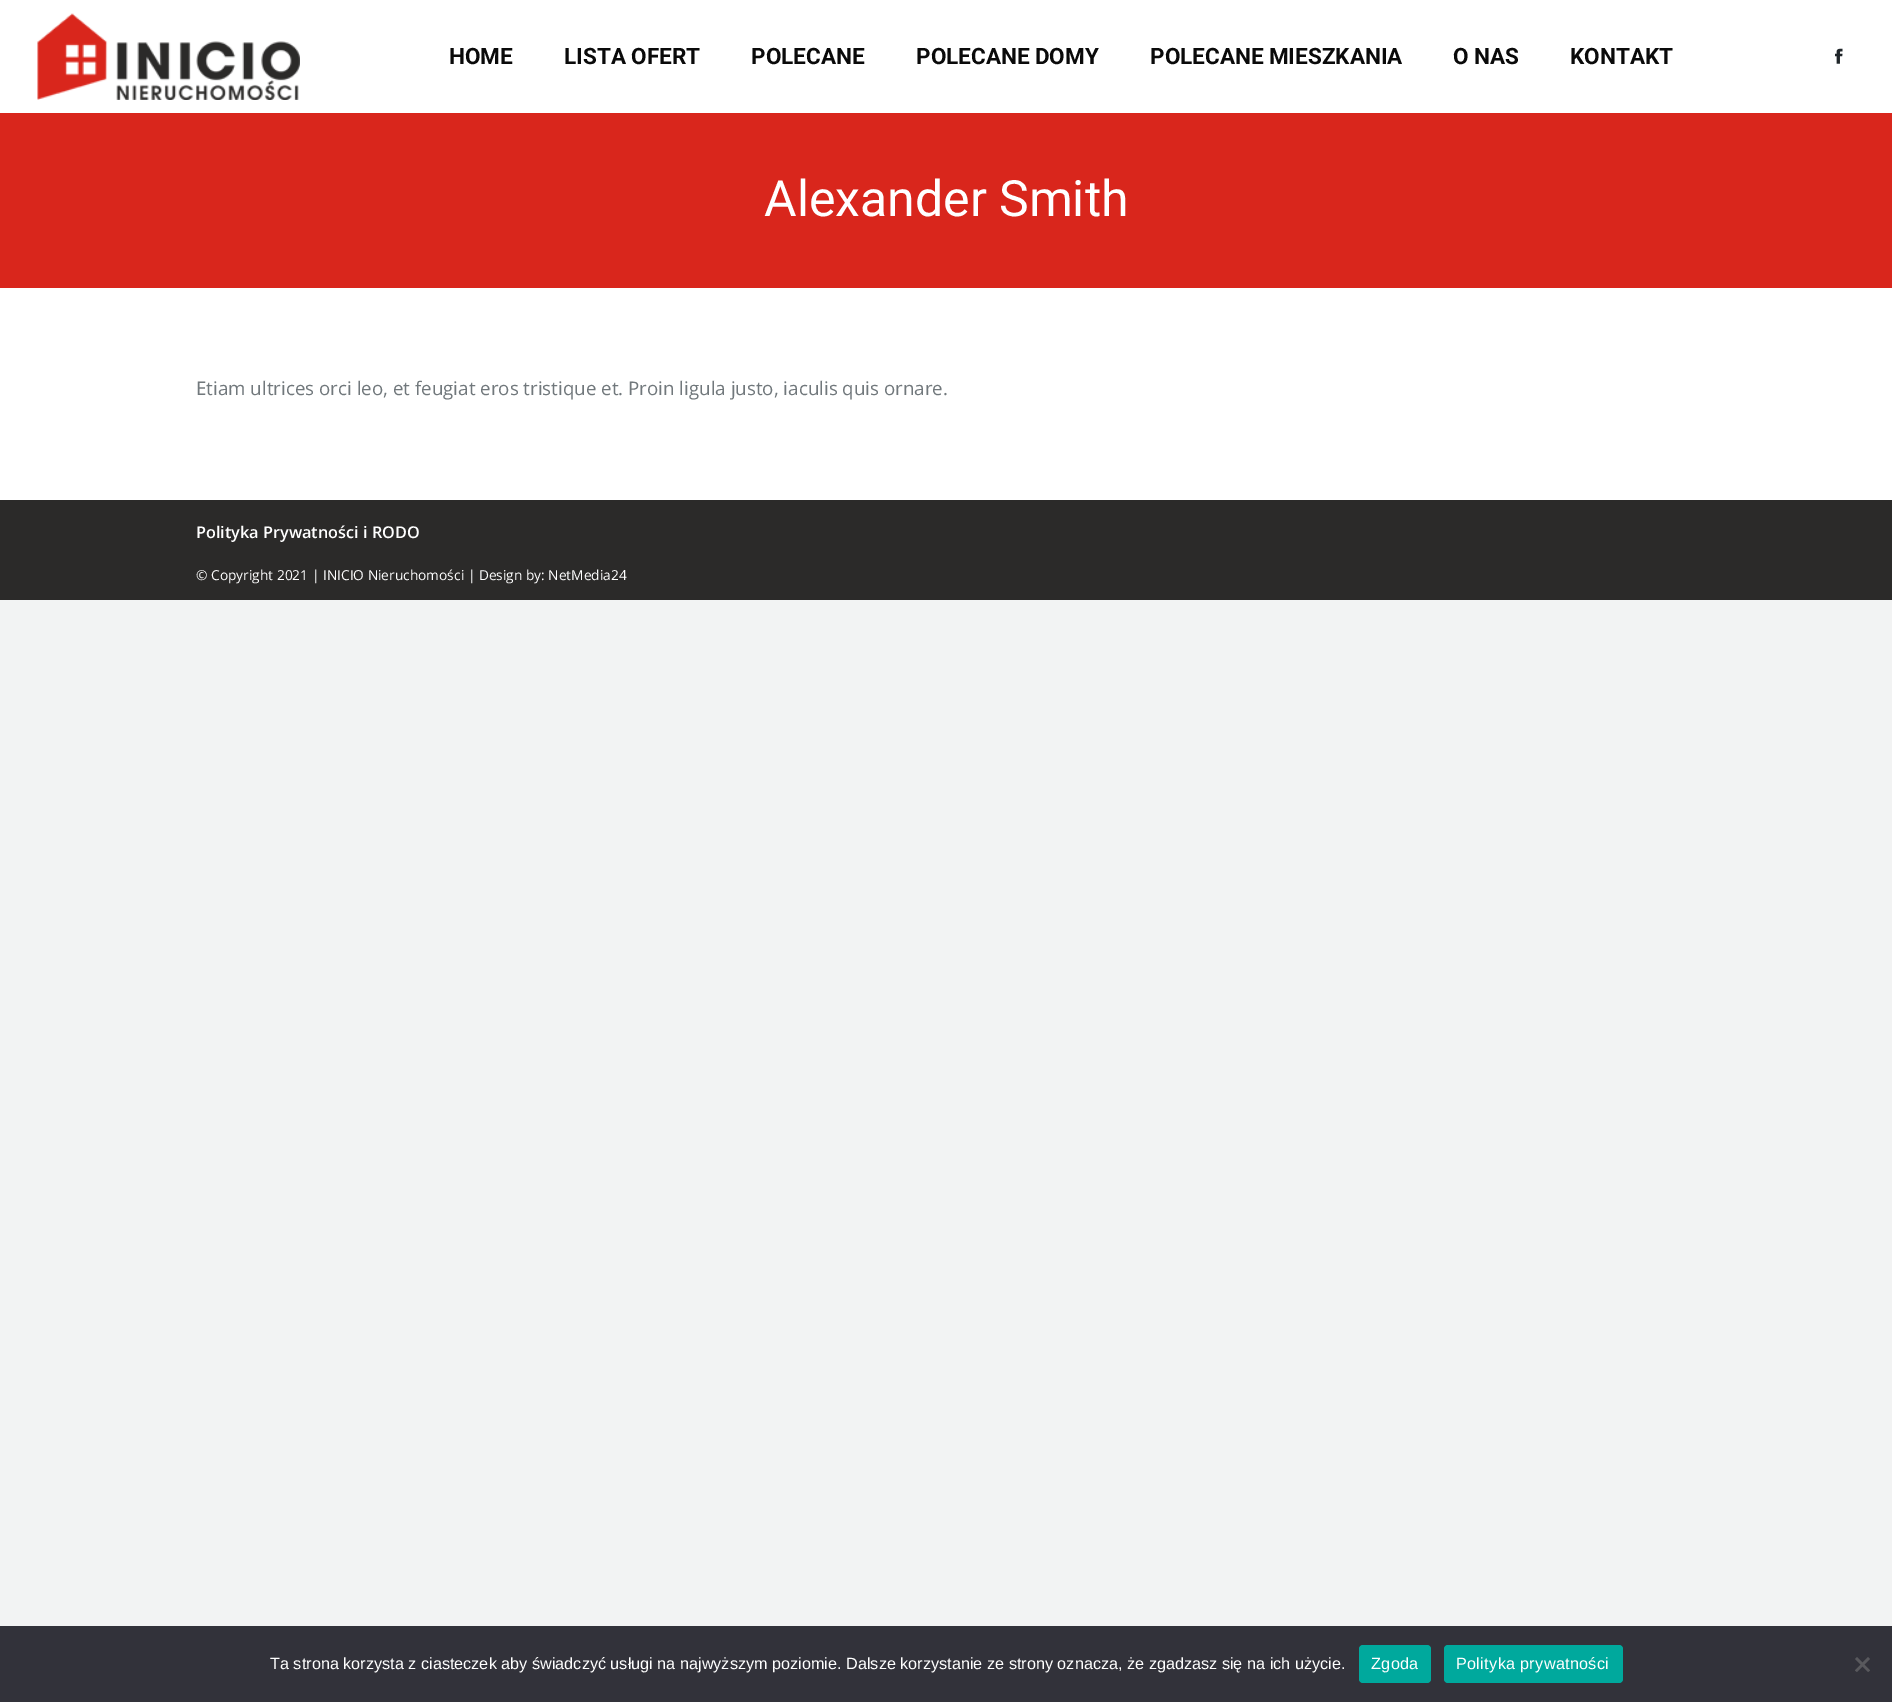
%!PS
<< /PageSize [1892 1702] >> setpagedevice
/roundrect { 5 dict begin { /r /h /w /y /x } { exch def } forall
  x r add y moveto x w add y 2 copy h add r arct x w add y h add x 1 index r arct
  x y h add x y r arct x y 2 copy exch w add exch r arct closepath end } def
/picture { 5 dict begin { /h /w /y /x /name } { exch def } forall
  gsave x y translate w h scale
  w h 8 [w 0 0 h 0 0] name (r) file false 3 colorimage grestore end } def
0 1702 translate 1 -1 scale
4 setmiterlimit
0.949 0.953 0.953 setrgbcolor
0 0 1892 1702 rectfill
1 setgray
0 0 1892 500 rectfill
(img1.rgb) 37 13 263 87 picture
/Roboto-Bold [22.5 0 0 -22.5 0 0] selectfont
0.039 setgray
449 64 moveto (HOME) show
564 64 moveto (LISTA OFERT) show
751 64 moveto (POLECANE) show
916 64 moveto (POLECANE DOMY) show
1150 64 moveto (POLECANE MIESZKANIA) show
1453 64 moveto (O NAS) show
1570 64 moveto (KONTAKT) show
(img2.rgb) 1835 48 8 16 picture
0.851 0.149 0.11 setrgbcolor
0 113 1892 175 rectfill
/Roboto-Regular [50 0 0 -50 0 0] selectfont
1 setgray
764 216 moveto (Alexander Smith) show
/OpenSans-Regular [18.75 0 0 -18.75 0 0] selectfont
0.443 0.471 0.486 setrgbcolor
196 395 moveto (Etiam ultrices orci leo, et feugiat eros tristique et. Proin ligula justo, iaculis quis ornare.) show
0.169 0.165 0.161 setrgbcolor
0 500 1892 100 rectfill
/OpenSans-SemiBold [16.25 0 0 -16.25 0 0] selectfont
1 setgray
196 538 moveto (Polityka Prywatności i RODO) show
/OpenSans-Regular [13.75 0 0 -13.75 0 0] selectfont
196 580 moveto (© Copyright 2021 | INICIO Nieruchomości | Design by: NetMedia24) show
0.196 0.196 0.227 setrgbcolor
0 1626 1892 76 rectfill
/LiberationSans-Regular [16.25 0 0 -16.25 0 0] selectfont
1 setgray
270 1669 moveto (Ta strona korzysta z ciasteczek aby świadczyć usługi na najwyższym poziomie. Dalsze korzystanie ze strony oznacza, że zgadzasz się na ich użycie.) show
0 0.663 0.616 setrgbcolor
1359 1645 72 38 4 roundrect fill
1 setgray
1371 1669 moveto 0.3 0 (Zgoda) ashow
0 0.663 0.616 setrgbcolor
1444 1645 179 38 4 roundrect fill
1 setgray
1456 1669 moveto 0.3 0 (Polityka prywatności) ashow
0.349 0.349 0.365 setrgbcolor
newpath 1868 1657 moveto 1870 1659 lineto 1857 1672 lineto 1855 1670.5 lineto closepath fill
newpath 1855 1659 moveto 1857 1657 lineto 1870 1670.5 lineto 1868 1672 lineto closepath fill
showpage
